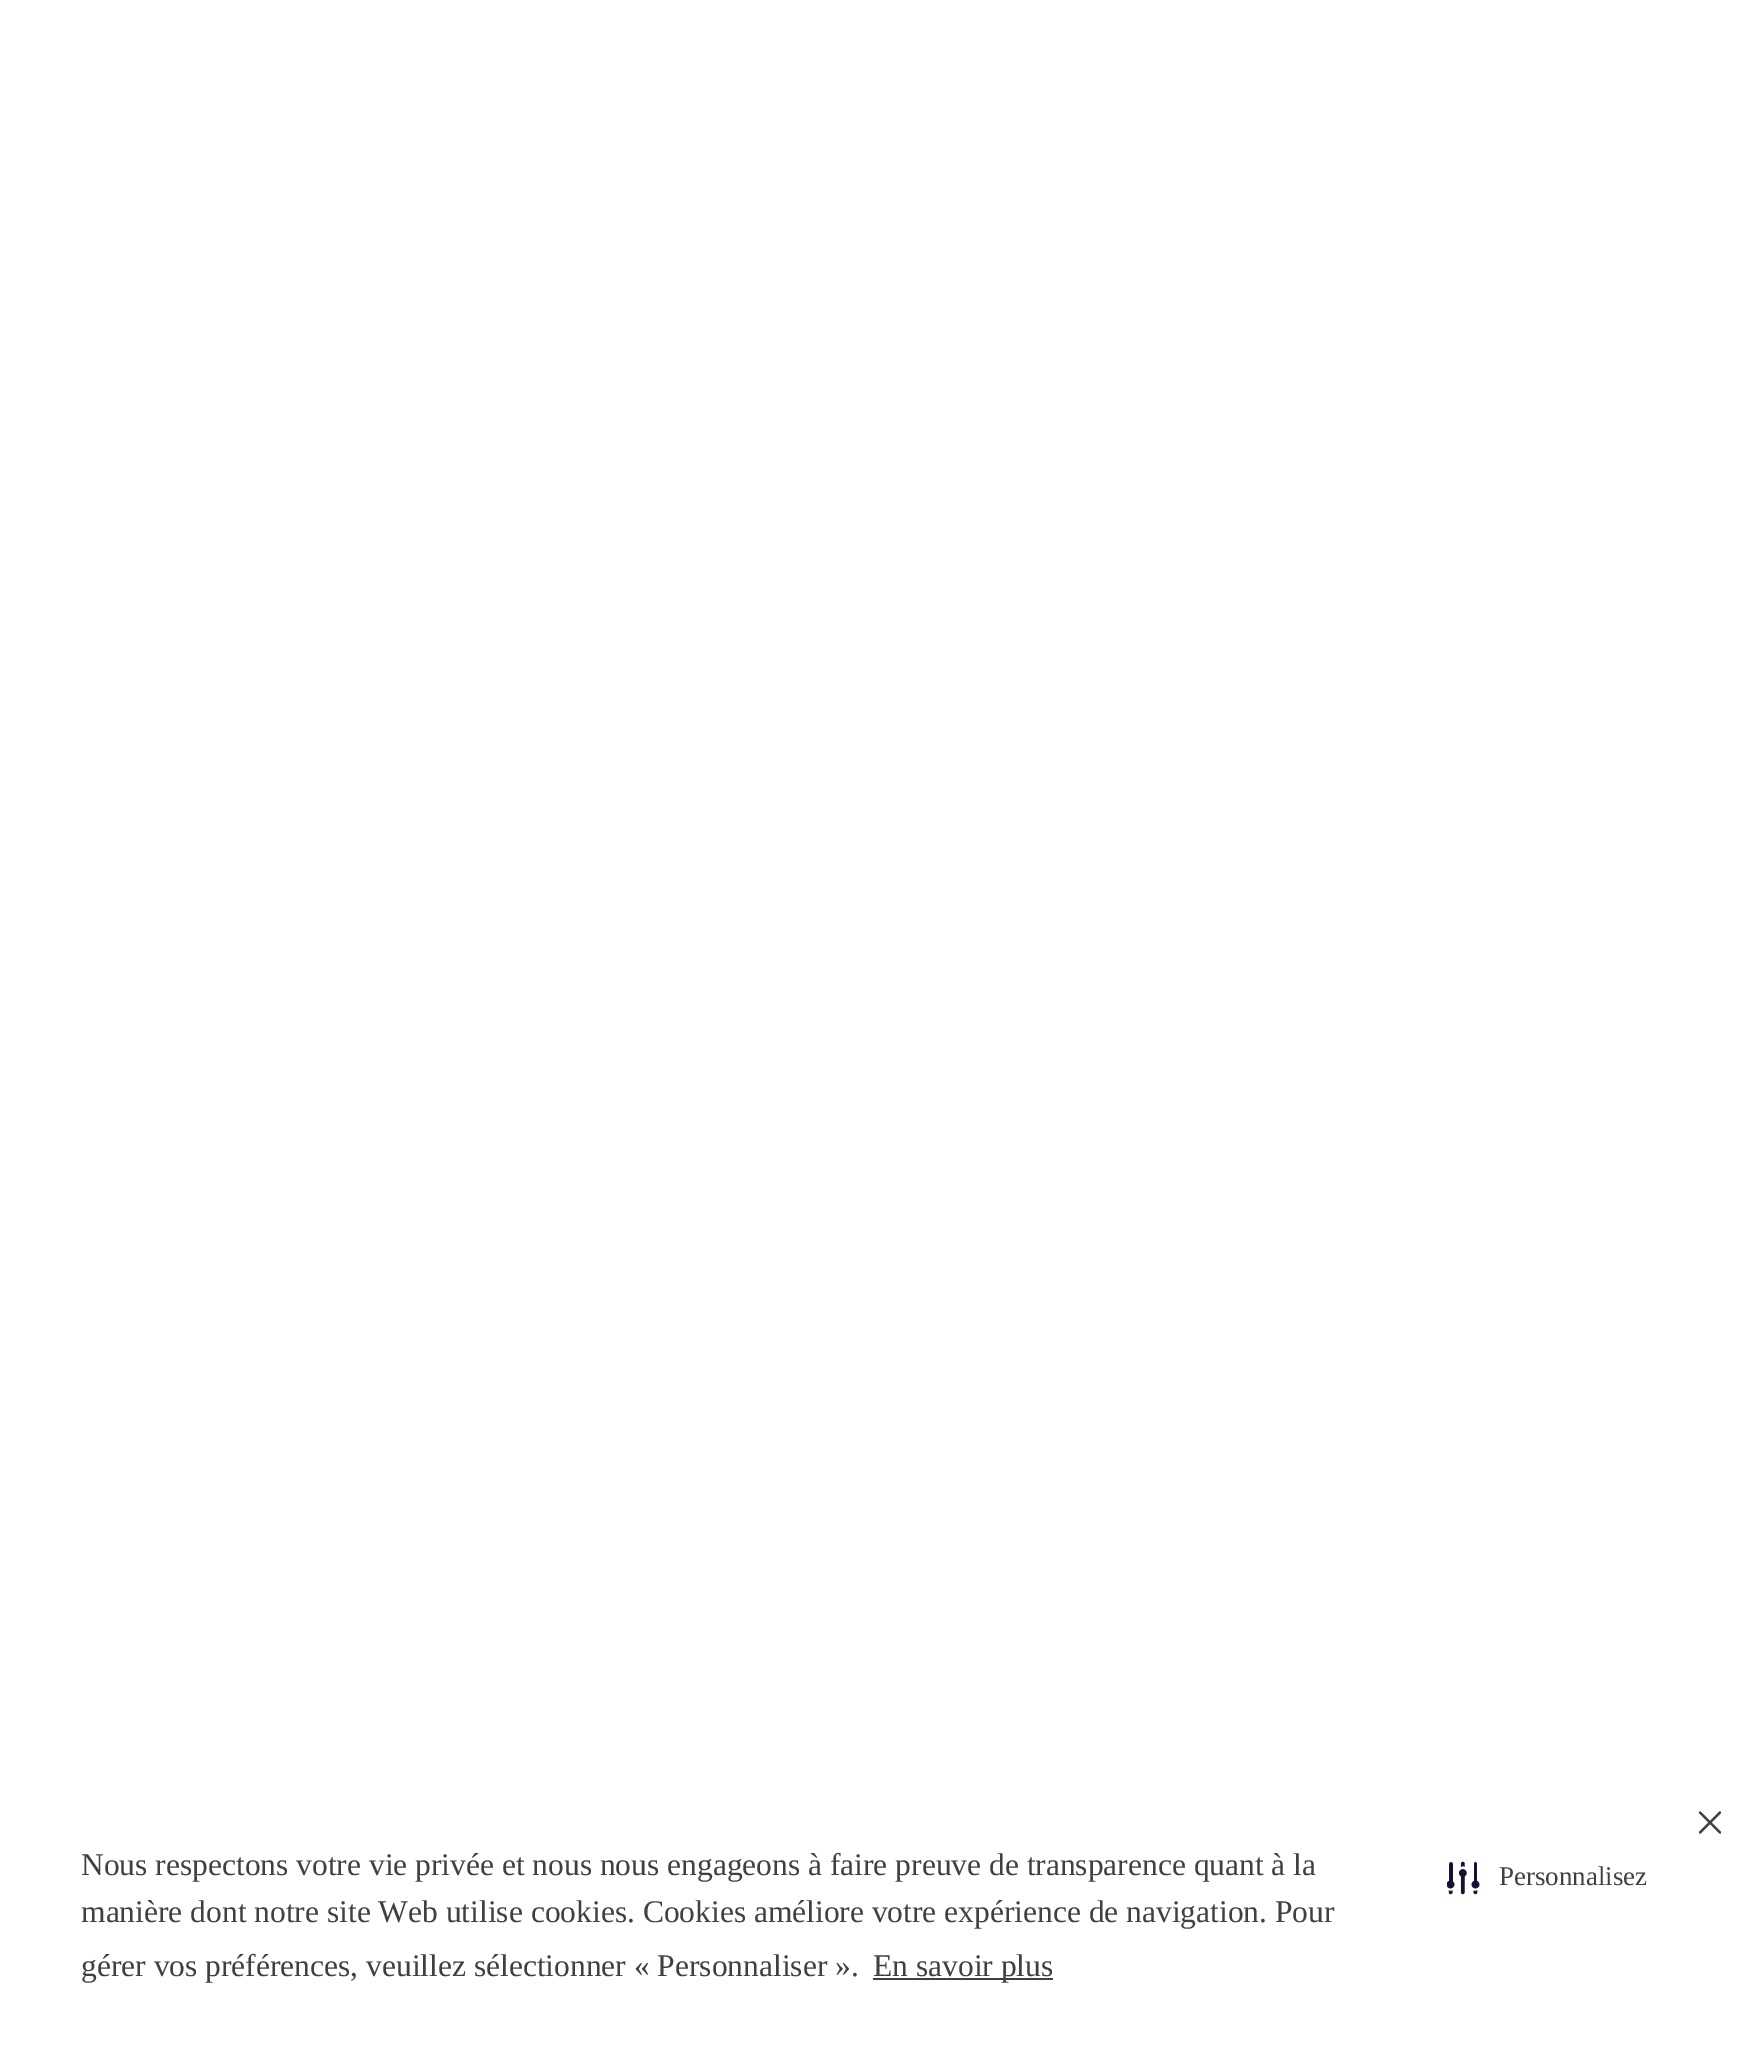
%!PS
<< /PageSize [1746 2048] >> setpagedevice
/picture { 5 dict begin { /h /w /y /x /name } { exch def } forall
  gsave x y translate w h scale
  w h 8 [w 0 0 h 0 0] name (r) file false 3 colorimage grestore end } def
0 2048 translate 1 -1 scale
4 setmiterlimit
1 setgray
0 0 1746 2048 rectfill
/LiberationSerif-Regular [31.5 0 0 -31.5 0 0] selectfont
0.251 setgray
81 1875 moveto (Nous respectons votre vie privée et nous nous engageons à faire preuve de transparence quant à la) show
81 1922 moveto (manière dont notre site Web utilise cookies. Cookies améliore votre expérience de navigation. Pour) show
81 1976 moveto (gérer vos préférences, veuillez sélectionner « Personnaliser ».) show
873 1978 180 2 rectfill
873 1976 moveto (En savoir plus) show
(img1.rgb) 1699 1811 22 23 picture
(img2.rgb) 1447 1861 33 34 picture
/LiberationSerif-Regular [27 0 0 -27 0 0] selectfont
1499 1885 moveto (Personnalisez) show
showpage
